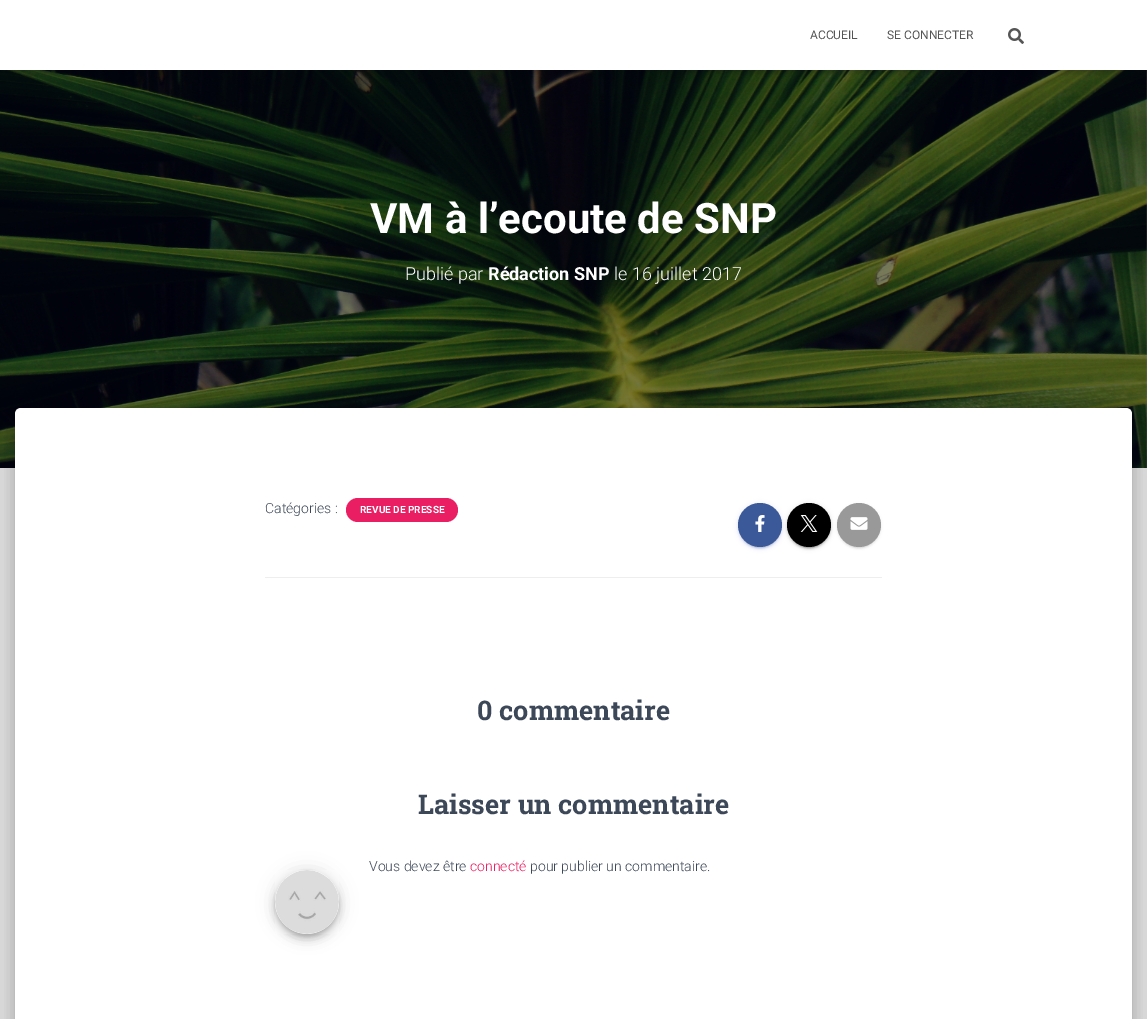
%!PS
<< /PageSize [1147 1019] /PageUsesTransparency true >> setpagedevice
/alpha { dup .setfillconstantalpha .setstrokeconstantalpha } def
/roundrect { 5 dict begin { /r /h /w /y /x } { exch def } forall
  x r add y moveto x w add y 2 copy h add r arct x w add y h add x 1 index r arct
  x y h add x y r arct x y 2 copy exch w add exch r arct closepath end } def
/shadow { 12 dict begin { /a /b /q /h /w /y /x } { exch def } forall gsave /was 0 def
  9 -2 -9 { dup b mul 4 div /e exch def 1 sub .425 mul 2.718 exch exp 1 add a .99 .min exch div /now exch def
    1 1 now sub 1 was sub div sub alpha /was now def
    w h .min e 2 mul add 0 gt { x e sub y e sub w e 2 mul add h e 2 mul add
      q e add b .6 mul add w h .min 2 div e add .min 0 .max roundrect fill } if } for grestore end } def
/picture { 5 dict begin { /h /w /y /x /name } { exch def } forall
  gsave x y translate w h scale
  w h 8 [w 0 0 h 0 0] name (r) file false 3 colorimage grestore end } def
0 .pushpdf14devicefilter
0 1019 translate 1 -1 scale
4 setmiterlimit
0.898 setgray
0 0 1147 1019 rectfill
(img2.rgb) 0 70 1147 398 picture
0 setgray
2 6 1143 66 0 2.5 0.1 shadow
0 1 1147 70 0 5 0.12 shadow
6 7 1135 58 0 5 0.42 shadow
1 setgray
0 0 1147 70 rectfill
/Roboto-Regular [12 0 0 -12 0 0] selectfont
0.333 setgray
810 39 moveto (ACCUEIL) show
887 39 moveto (SE CONNECTER) show
(img1.rgb) 1008 28 16 16 picture
/Roboto-Bold [42 0 0 -42 0 0] selectfont
1 setgray
370 233 moveto (VM à l’ecoute de SNP) show
/Roboto-Light [18 0 0 -18 0 0] selectfont
405 280 moveto (Publié par) show
/Roboto-Bold [18 0 0 -18 0 0] selectfont
488 280 moveto (Rédaction SNP) show
/Roboto-Light [18 0 0 -18 0 0] selectfont
614 280 moveto (le 16 juillet 2017) show
0 setgray
20 421 1107 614 1 5 0.2 shadow
10 409 1127 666 11 15 0.12 shadow
13 422 1121 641 8 12 0.14 shadow
1 setgray
newpath 21 408 moveto 1126 408 lineto 1129.5 408 1132 410.5 1132 414 curveto 1132 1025 lineto 15 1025 lineto 15 414 lineto 15 410.5 17.5 408 21 408 curveto closepath fill
/Roboto-Light [14 0 0 -14 0 0] selectfont
0.235 0.282 0.345 setrgbcolor
265 513 moveto (Catégories :) show
0.914 0.118 0.388 setrgbcolor
346 498 112 24 12 roundrect fill
/Roboto-Bold [10 0 0 -10 0 0] selectfont
1 setgray
360 513 moveto (REVUE DE PRESSE) show
0.231 0.349 0.596 setrgbcolor
738 504 44 44 22 2.5 0.12 shadow
740 508 40 40 20 0.5 0.2 shadow
738 505 44 44 22 1 0.14 shadow
newpath 760 525 22 0 360 arc closepath fill
(img3.rgb) 755 515 10 17 picture
0 setgray
787 504 44 44 22 2.5 0.12 shadow
789 508 40 40 20 0.5 0.2 shadow
787 505 44 44 22 1 0.14 shadow
newpath 809 525 22 0 360 arc closepath fill
(img4.rgb) 800 515 18 17 picture
0.6 setgray
837 504 44 44 22 2.5 0.12 shadow
839 508 40 40 20 0.5 0.2 shadow
837 505 44 44 22 1 0.14 shadow
newpath 859 525 22 0 360 arc closepath fill
(img5.rgb) 850 517 18 13 picture
0.933 setgray
265 577 617 1 rectfill
/RobotoSlab-Bold [27 0 0 -27 0 0] selectfont
0.235 0.282 0.345 setrgbcolor
477 720 moveto (0 commentaire) show
418 814 moveto (Laisser un commentaire) show
0 setgray
276 874 62 62 31 2.5 0.2 shadow
275 871 64 64 32 9 0.12 shadow
275 876 64 64 32 5 0.14 shadow
(img6.rgb) 275 870 64 64 picture
/Roboto-Light [14 0 0 -14 0 0] selectfont
0.235 0.282 0.345 setrgbcolor
369 871 moveto (Vous devez être) show
0.914 0.118 0.388 setrgbcolor
470 871 moveto (connecté) show
0.235 0.282 0.345 setrgbcolor
530 871 moveto (pour publier un commentaire.) show
.poppdf14devicefilter showpage
